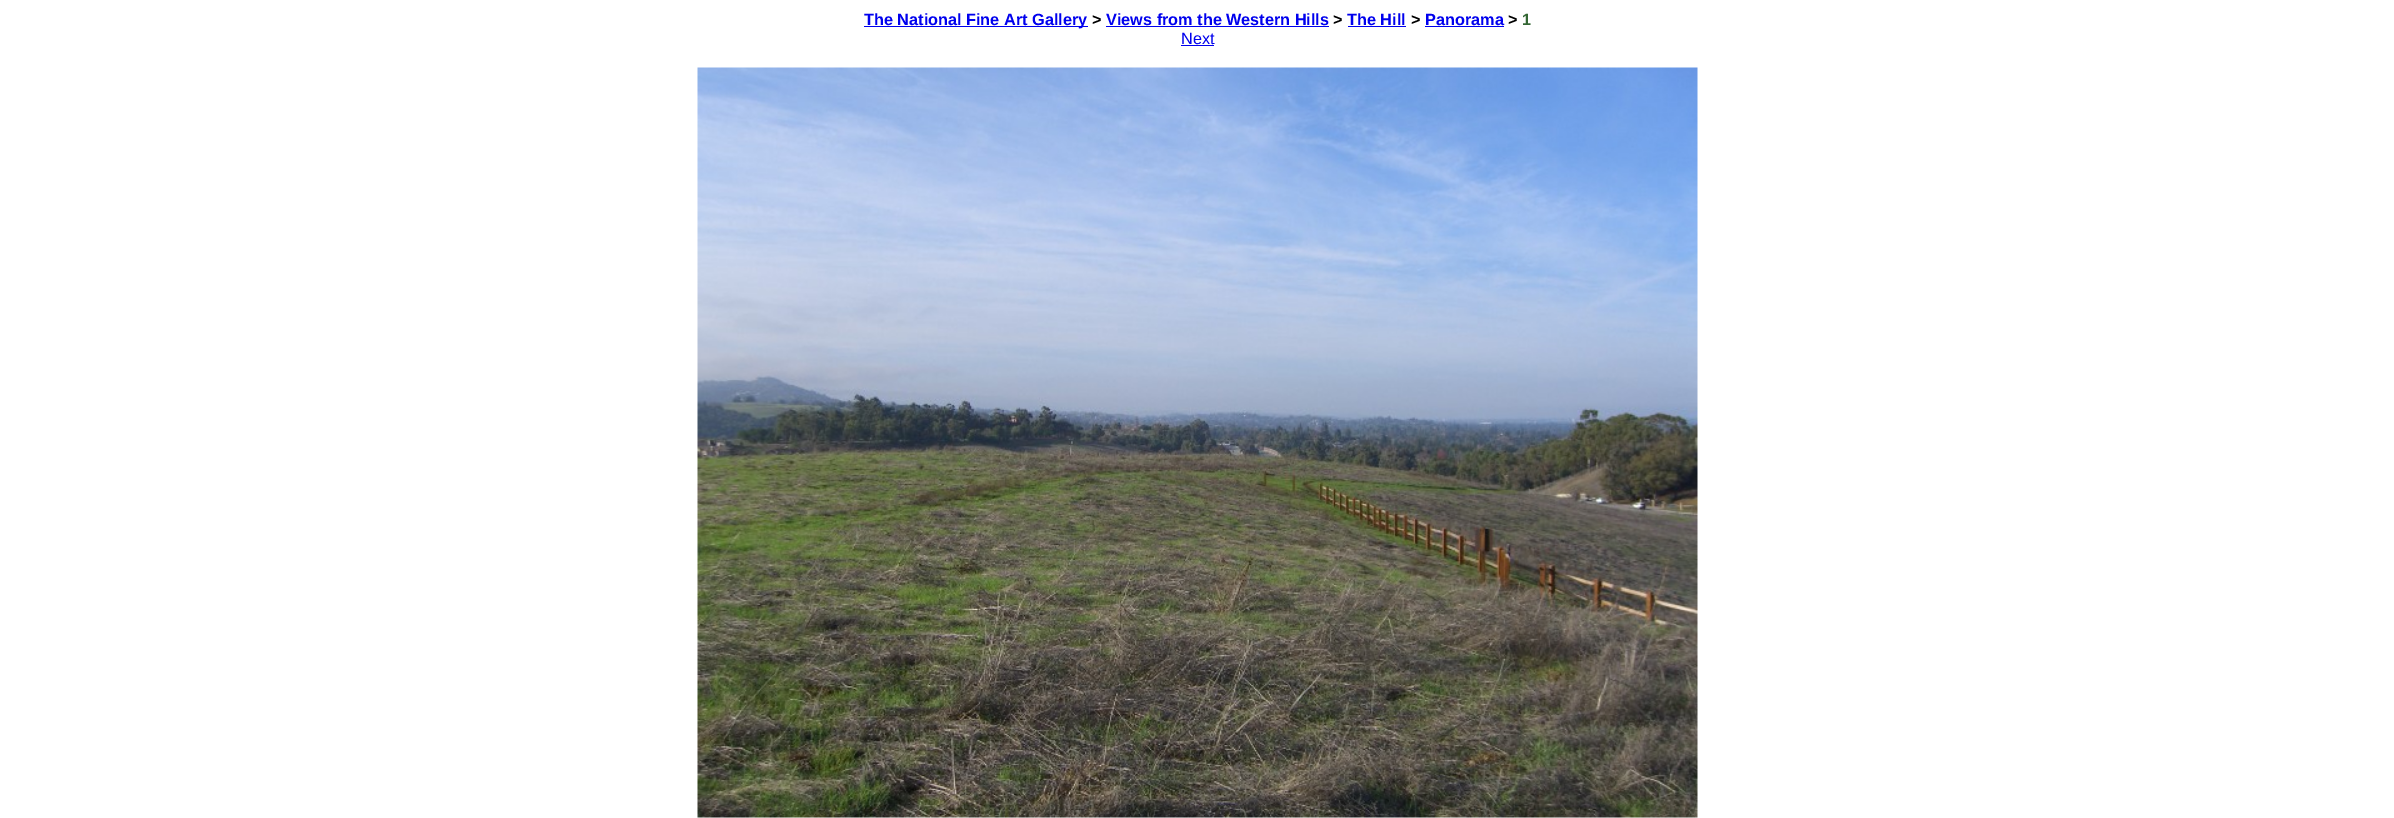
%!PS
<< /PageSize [2394 818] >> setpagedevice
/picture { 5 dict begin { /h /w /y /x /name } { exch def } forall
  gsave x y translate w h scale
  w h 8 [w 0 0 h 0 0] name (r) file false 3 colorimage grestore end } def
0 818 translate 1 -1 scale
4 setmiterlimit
1 setgray
0 0 2394 818 rectfill
0 0 0.933 setrgbcolor
864 26 224 1 rectfill
/LiberationSans-Bold [16.25 0 0 -16.25 0 0] selectfont
864 25 moveto (The National Fine Art Gallery) show
0 setgray
1092 25 moveto (>) show
0 0 0.933 setrgbcolor
1106 25 moveto (Views from the Western Hills) show
1106 26 223 1 rectfill
0 setgray
1333 25 moveto (>) show
0 0 0.933 setrgbcolor
1347 25 moveto (The Hill) show
1348 26 58 1 rectfill
0 setgray
1411 25 moveto (>) show
0 0 0.933 setrgbcolor
1425 25 moveto (Panorama) show
1425 26 79 1 rectfill
0 setgray
1508 25 moveto (>) show
0.2 0.4 0.2 setrgbcolor
1522 25 moveto (1) show
/LiberationSans-Regular [16.25 0 0 -16.25 0 0] selectfont
0 0 0.933 setrgbcolor
1181 44 moveto (Next) show
1181 45 33 1 rectfill
(img1.rgb) 697 67 1001 751 picture
showpage
